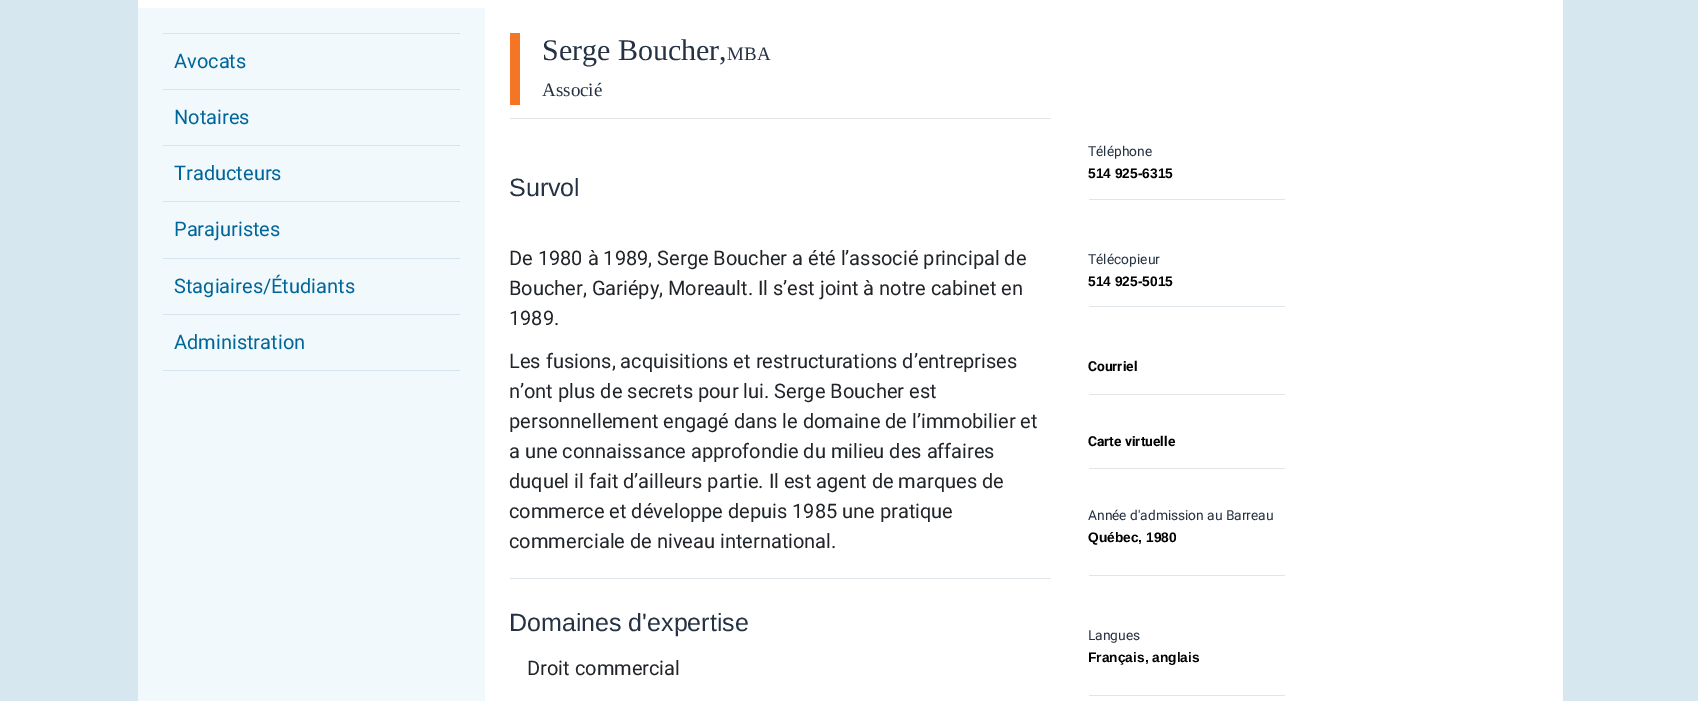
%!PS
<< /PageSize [1698 701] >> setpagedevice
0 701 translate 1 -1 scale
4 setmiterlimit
0.839 0.906 0.937 setrgbcolor
0 0 1698 701 rectfill
1 setgray
138 0 1425 8 rectfill
485 8 1078 693 rectfill
0.945 0.976 0.988 setrgbcolor
138 8 347 693 rectfill
0.835 0.898 0.922 setrgbcolor
163 370 297 1 rectfill
163 33 297 1 rectfill
/Roboto-Regular [20 0 0 -20 0 0] selectfont
0 0.4 0.6 setrgbcolor
174 68 moveto (Avocats) show
0.835 0.898 0.922 setrgbcolor
163 89 297 1 rectfill
0 0.4 0.6 setrgbcolor
174 124 moveto (Notaires) show
0.835 0.898 0.922 setrgbcolor
163 145 297 1 rectfill
0 0.4 0.6 setrgbcolor
174 180 moveto (Traducteurs) show
0.835 0.898 0.922 setrgbcolor
163 201 297 1 rectfill
0 0.4 0.6 setrgbcolor
174 236 moveto (Parajuristes) show
0.835 0.898 0.922 setrgbcolor
163 258 297 1 rectfill
0 0.4 0.6 setrgbcolor
174 293 moveto (Stagiaires/Étudiants) show
0.835 0.898 0.922 setrgbcolor
163 314 297 1 rectfill
0 0.4 0.6 setrgbcolor
174 349 moveto (Administration) show
0.878 0.898 0.918 setrgbcolor
510 118 541 1 rectfill
0.957 0.459 0.149 setrgbcolor
510 33 10 72 rectfill
/LiberationSerif-Regular [30 0 0 -30 0 0] selectfont
0.145 0.196 0.263 setrgbcolor
542 60 moveto (Serge Boucher,) show
/LiberationSerif-Regular [19 0 0 -19 0 0] selectfont
727 60 moveto (MBA) show
542 96 moveto (Associé) show
/LiberationSans-Regular [25 0 0 -25 0 0] selectfont
509 196 moveto (Survol) show
0.878 0.898 0.918 setrgbcolor
510 578 541 1 rectfill
/Roboto-Regular [20 0 0 -20 0 0] selectfont
0.129 0.145 0.161 setrgbcolor
509 265 moveto (De 1980 à 1989, Serge Boucher a été l’associé principal de) show
509 295 moveto (Boucher, Gariépy, Moreault. Il s’est joint à notre cabinet en) show
509 325 moveto (1989.) show
509 368 moveto (Les fusions, acquisitions et restructurations d’entreprises) show
509 398 moveto (n’ont plus de secrets pour lui. Serge Boucher est) show
509 428 moveto (personnellement engagé dans le domaine de l’immobilier et) show
509 458 moveto (a une connaissance approfondie du milieu des affaires) show
509 488 moveto (duquel il fait d’ailleurs partie. Il est agent de marques de) show
509 518 moveto (commerce et développe depuis 1985 une pratique) show
509 548 moveto (commerciale de niveau international.) show
/LiberationSans-Regular [25 0 0 -25 0 0] selectfont
0.145 0.196 0.263 setrgbcolor
509 631 moveto (Domaines d'expertise) show
/Roboto-Regular [20 0 0 -20 0 0] selectfont
0.129 0.145 0.161 setrgbcolor
527 675 moveto (Droit commercial) show
/Roboto-Regular [13.75 0 0 -13.75 0 0] selectfont
0.145 0.196 0.263 setrgbcolor
1088 156 moveto (Téléphone) show
0.878 0.898 0.918 setrgbcolor
1089 199 196 1 rectfill
/LiberationSans-Bold [13.75 0 0 -13.75 0 0] selectfont
0 setgray
1088 178 moveto (514 925-6315) show
/Roboto-Regular [13.75 0 0 -13.75 0 0] selectfont
0.145 0.196 0.263 setrgbcolor
1088 264 moveto (Télécopieur) show
0.878 0.898 0.918 setrgbcolor
1089 306 196 1 rectfill
/LiberationSans-Bold [13.75 0 0 -13.75 0 0] selectfont
0 setgray
1088 286 moveto (514 925-5015) show
/Roboto-Bold [13.75 0 0 -13.75 0 0] selectfont
1088 371 moveto (Courriel) show
0.878 0.898 0.918 setrgbcolor
1089 394 196 1 rectfill
1089 468 196 1 rectfill
0 setgray
1088 446 moveto (Carte virtuelle) show
/Roboto-Regular [13.75 0 0 -13.75 0 0] selectfont
0.145 0.196 0.263 setrgbcolor
1088 520 moveto (Année d'admission au Barreau) show
0.878 0.898 0.918 setrgbcolor
1089 575 196 1 rectfill
/LiberationSans-Bold [13.75 0 0 -13.75 0 0] selectfont
0 setgray
1088 542 moveto (Québec, 1980) show
/Roboto-Regular [13.75 0 0 -13.75 0 0] selectfont
0.145 0.196 0.263 setrgbcolor
1088 640 moveto (Langues) show
0.878 0.898 0.918 setrgbcolor
1089 695 196 1 rectfill
/LiberationSans-Bold [13.75 0 0 -13.75 0 0] selectfont
0 setgray
1088 662 moveto (Français, anglais) show
showpage
